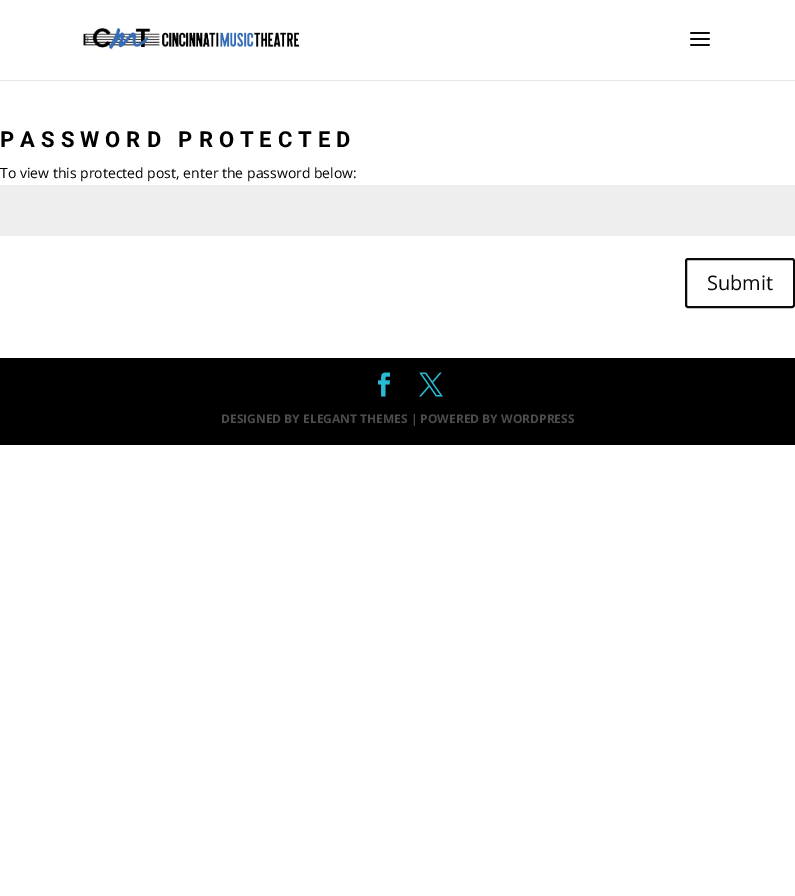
%!PS
<< /PageSize [795 896] >> setpagedevice
/roundrect { 5 dict begin { /r /h /w /y /x } { exch def } forall
  x r add y moveto x w add y 2 copy h add r arct x w add y h add x 1 index r arct
  x y h add x y r arct x y 2 copy exch w add exch r arct closepath end } def
/picture { 5 dict begin { /h /w /y /x /name } { exch def } forall
  gsave x y translate w h scale
  w h 8 [w 0 0 h 0 0] name (r) file false 3 colorimage grestore end } def
0 896 translate 1 -1 scale
4 setmiterlimit
1 setgray
0 0 795 896 rectfill
0.902 setgray
0 80 795 1 rectfill
(img1.rgb) 83 28 217 22 picture
(img2.rgb) 690 32 20 14 picture
/Roboto-Bold [22 0 0 -22 0 0] selectfont
0 setgray
0 147 moveto 6 0 (PASSWORD PROTECTED) ashow
/OpenSans-Regular [14 0 0 -14 0 0] selectfont
0 178 moveto (To view this protected post, enter the password below:) show
0.933 setgray
0 185 795 51 rectfill
0.039 setgray
2 setlinewidth
686 259 108 48 2 roundrect stroke
/OpenSans-Regular [20 0 0 -20 0 0] selectfont
707 290 moveto (Submit) show
0 setgray
0 358 795 87 rectfill
(img3.rgb) 378 372 13 25 picture
(img4.rgb) 419 372 24 25 picture
/OpenSans-Bold [12 0 0 -12 0 0] selectfont
0.298 setgray
221 423 moveto (DESIGNED BY ELEGANT THEMES | POWERED BY WORDPRESS) show
showpage
